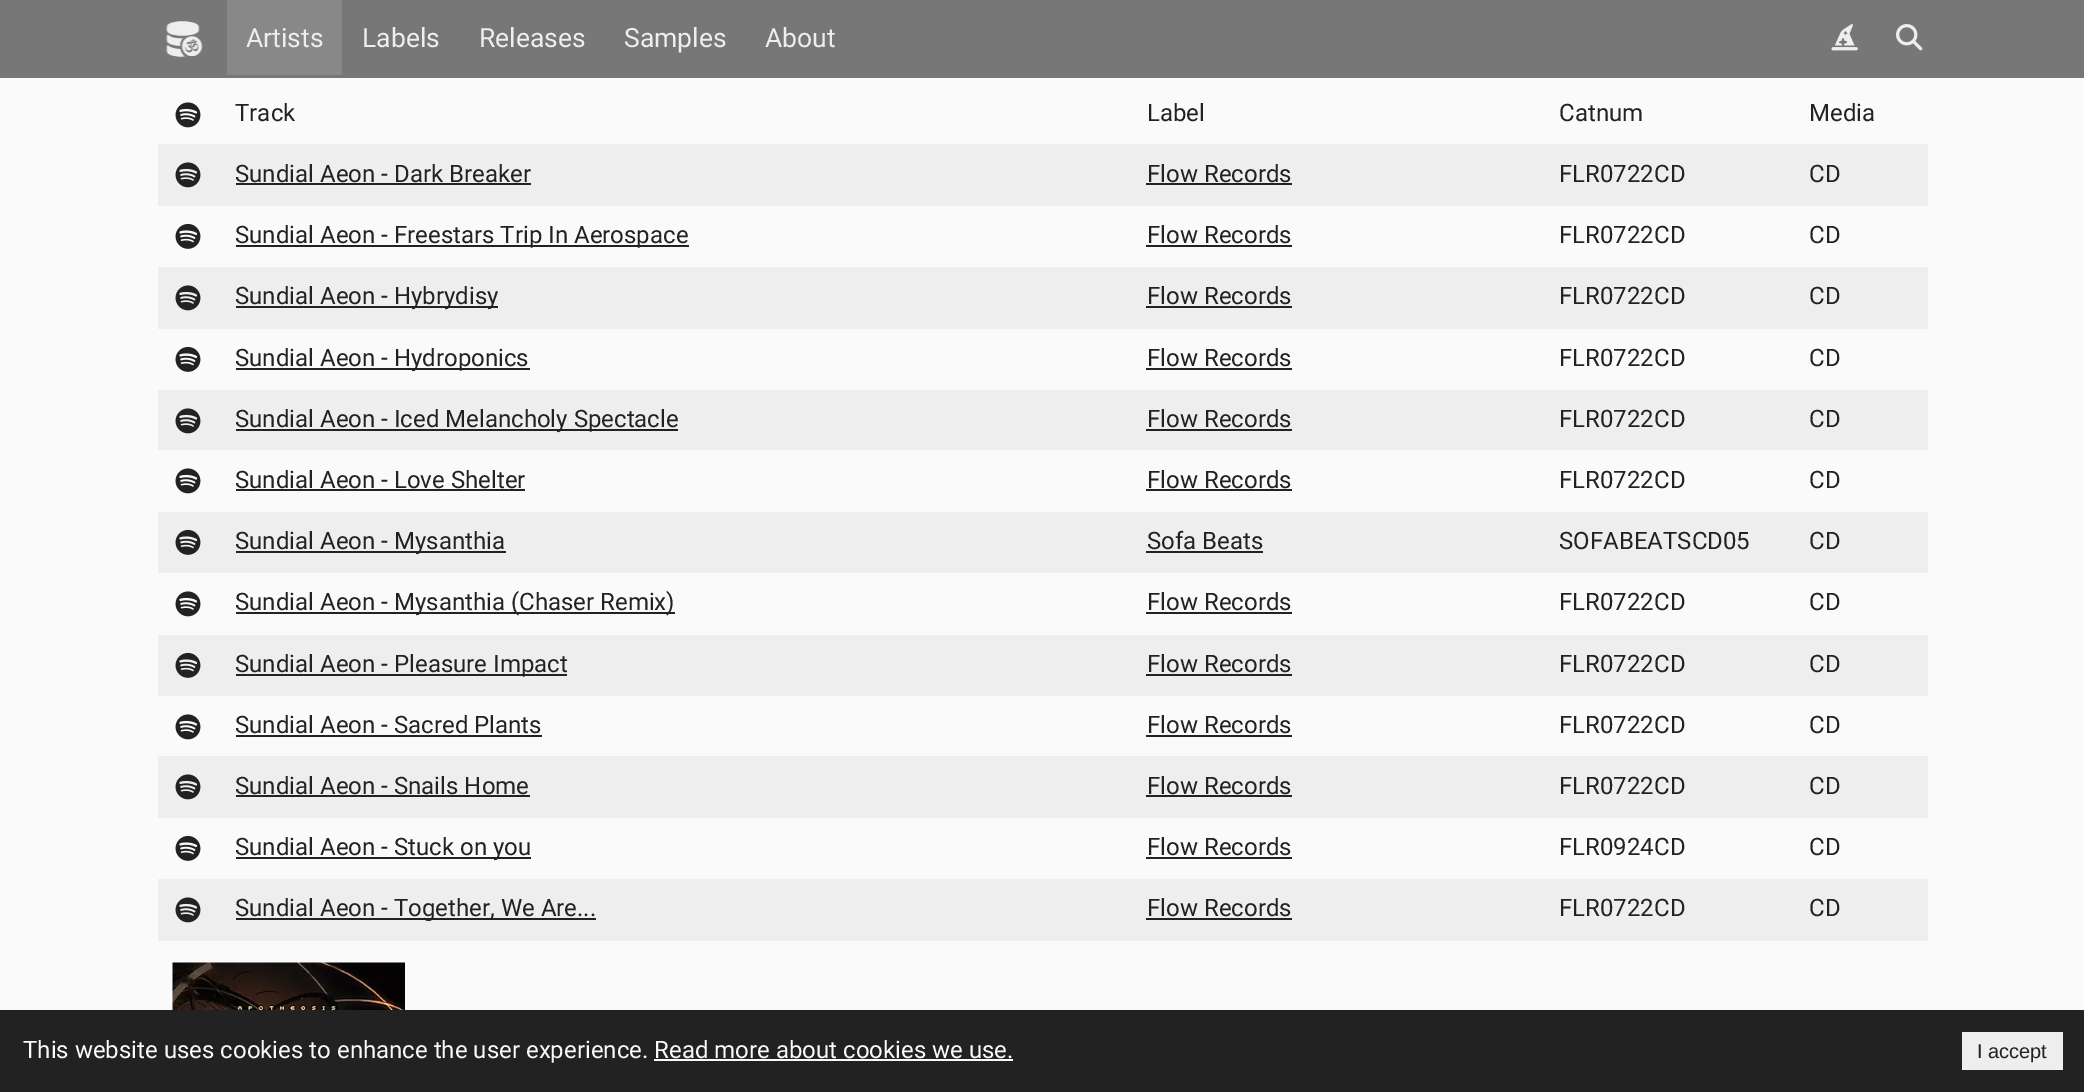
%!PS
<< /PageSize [2084 1092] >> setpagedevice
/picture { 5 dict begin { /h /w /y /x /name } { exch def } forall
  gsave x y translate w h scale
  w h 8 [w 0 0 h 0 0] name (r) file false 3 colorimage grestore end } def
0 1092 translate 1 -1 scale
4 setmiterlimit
0.98 setgray
0 0 2084 1092 rectfill
0.467 setgray
0 0 2084 78 rectfill
(img1.rgb) 166 21 37 36 picture
0.533 setgray
227 0 115 75 rectfill
/Roboto-Regular [26.5 0 0 -26.5 0 0] selectfont
0.933 setgray
246 47 moveto (Artists) show
362 47 moveto (Labels) show
479 47 moveto (Releases) show
624 47 moveto (Samples) show
765 47 moveto (About) show
(img2.rgb) 1831 24 27 27 picture
(img3.rgb) 1896 24 27 27 picture
(img4.rgb) 175 102 26 26 picture
/Roboto-Regular [24 0 0 -24 0 0] selectfont
0.133 setgray
235 121 moveto (Track) show
1147 121 moveto (Label) show
1559 121 moveto (Catnum) show
1809 121 moveto (Media) show
0.933 setgray
158 144 1770 62 rectfill
(img5.rgb) 175 162 26 26 picture
0.133 setgray
235 182 moveto (Sundial Aeon - Dark Breaker) show
236 183 295 2 rectfill
1147 182 moveto (Flow Records) show
1146 183 146 2 rectfill
1559 182 moveto (FLR0722CD) show
1809 182 moveto (CD) show
(img6.rgb) 175 223 26 26 picture
236 245 453 2 rectfill
235 243 moveto (Sundial Aeon - Freestars Trip In Aerospace) show
1147 243 moveto (Flow Records) show
1146 245 146 2 rectfill
1559 243 moveto (FLR0722CD) show
1809 243 moveto (CD) show
0.933 setgray
158 267 1770 62 rectfill
(img5.rgb) 175 285 26 26 picture
0.133 setgray
236 306 262 2 rectfill
235 304 moveto (Sundial Aeon - Hybrydisy) show
1147 304 moveto (Flow Records) show
1146 306 146 2 rectfill
1559 304 moveto (FLR0722CD) show
1809 304 moveto (CD) show
(img6.rgb) 175 346 26 26 picture
236 368 294 2 rectfill
235 366 moveto (Sundial Aeon - Hydroponics) show
1147 366 moveto (Flow Records) show
1146 368 146 2 rectfill
1559 366 moveto (FLR0722CD) show
1809 366 moveto (CD) show
0.933 setgray
158 390 1770 60 rectfill
(img5.rgb) 175 408 26 26 picture
0.133 setgray
236 429 442 2 rectfill
235 427 moveto (Sundial Aeon - Iced Melancholy Spectacle) show
1147 427 moveto (Flow Records) show
1146 429 146 2 rectfill
1559 427 moveto (FLR0722CD) show
1809 427 moveto (CD) show
(img4.rgb) 175 468 26 26 picture
235 488 moveto (Sundial Aeon - Love Shelter) show
236 489 289 2 rectfill
1147 488 moveto (Flow Records) show
1146 489 146 2 rectfill
1559 488 moveto (FLR0722CD) show
1809 488 moveto (CD) show
0.933 setgray
158 512 1770 61 rectfill
(img7.rgb) 175 529 26 26 picture
0.133 setgray
236 551 270 2 rectfill
235 549 moveto (Sundial Aeon - Mysanthia) show
1147 549 moveto (Sofa Beats) show
1146 551 117 2 rectfill
1559 549 moveto (SOFABEATSCD05) show
1809 549 moveto (CD) show
(img4.rgb) 175 591 26 26 picture
236 612 439 2 rectfill
235 610 moveto (Sundial Aeon - Mysanthia \(Chaser Remix\)) show
1147 610 moveto (Flow Records) show
1146 612 146 2 rectfill
1559 610 moveto (FLR0722CD) show
1809 610 moveto (CD) show
0.933 setgray
158 635 1770 61 rectfill
(img7.rgb) 175 652 26 26 picture
0.133 setgray
236 674 331 2 rectfill
235 672 moveto (Sundial Aeon - Pleasure Impact) show
1147 672 moveto (Flow Records) show
1146 674 146 2 rectfill
1559 672 moveto (FLR0722CD) show
1809 672 moveto (CD) show
(img4.rgb) 175 714 26 26 picture
235 733 moveto (Sundial Aeon - Sacred Plants) show
236 735 306 2 rectfill
1147 733 moveto (Flow Records) show
1146 735 146 2 rectfill
1559 733 moveto (FLR0722CD) show
1809 733 moveto (CD) show
0.933 setgray
158 756 1770 62 rectfill
(img5.rgb) 175 774 26 26 picture
0.133 setgray
235 794 moveto (Sundial Aeon - Snails Home) show
236 795 294 2 rectfill
1147 794 moveto (Flow Records) show
1146 795 146 2 rectfill
1559 794 moveto (FLR0722CD) show
1809 794 moveto (CD) show
(img6.rgb) 175 835 26 26 picture
236 857 295 2 rectfill
235 855 moveto (Sundial Aeon - Stuck on you) show
1147 855 moveto (Flow Records) show
1146 857 146 2 rectfill
1559 855 moveto (FLR0924CD) show
1809 855 moveto (CD) show
0.933 setgray
158 879 1770 62 rectfill
(img5.rgb) 175 897 26 26 picture
0.133 setgray
236 918 360 2 rectfill
235 916 moveto (Sundial Aeon - Together, We Are...) show
1147 916 moveto (Flow Records) show
1146 918 146 2 rectfill
1559 916 moveto (FLR0722CD) show
1809 916 moveto (CD) show
(img8.rgb) 172 962 233 48 picture
0 1010 2084 82 rectfill
0.98 setgray
23 1058 moveto (This website uses cookies to enhance the user experience. Read more about cookies we use.) show
654 1059 359 2 rectfill
0.933 setgray
1962 1032 101 38 rectfill
/LiberationSans-Regular [20 0 0 -20 0 0] selectfont
0.133 setgray
1977 1058 moveto (I accept) show
showpage
